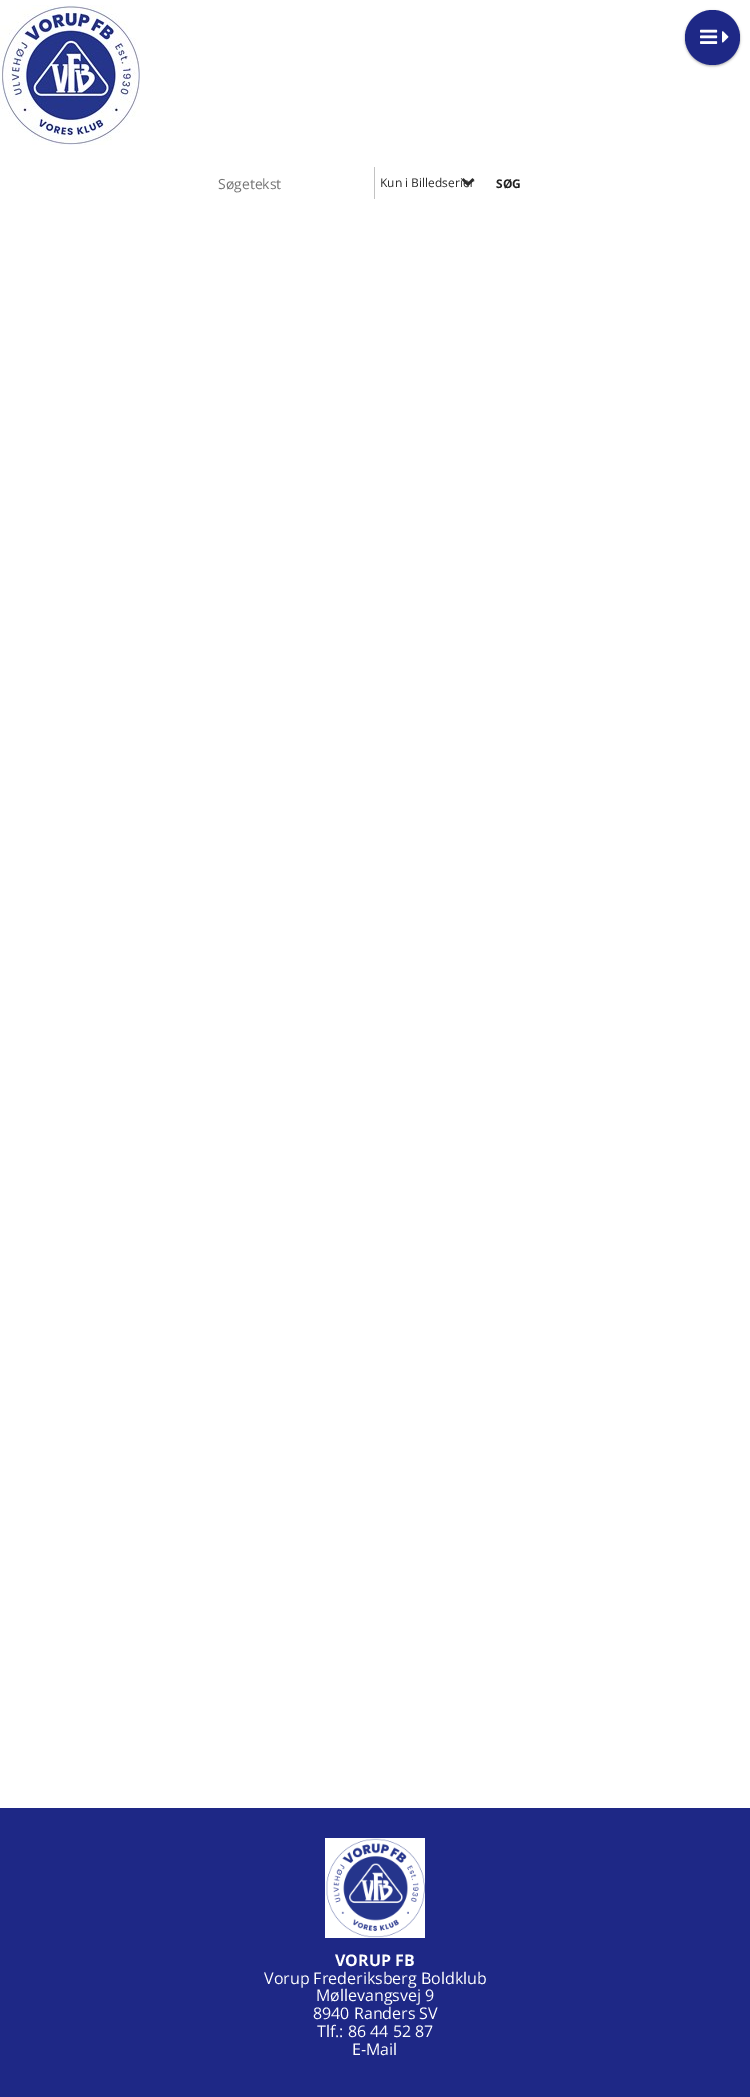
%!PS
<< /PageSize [750 2097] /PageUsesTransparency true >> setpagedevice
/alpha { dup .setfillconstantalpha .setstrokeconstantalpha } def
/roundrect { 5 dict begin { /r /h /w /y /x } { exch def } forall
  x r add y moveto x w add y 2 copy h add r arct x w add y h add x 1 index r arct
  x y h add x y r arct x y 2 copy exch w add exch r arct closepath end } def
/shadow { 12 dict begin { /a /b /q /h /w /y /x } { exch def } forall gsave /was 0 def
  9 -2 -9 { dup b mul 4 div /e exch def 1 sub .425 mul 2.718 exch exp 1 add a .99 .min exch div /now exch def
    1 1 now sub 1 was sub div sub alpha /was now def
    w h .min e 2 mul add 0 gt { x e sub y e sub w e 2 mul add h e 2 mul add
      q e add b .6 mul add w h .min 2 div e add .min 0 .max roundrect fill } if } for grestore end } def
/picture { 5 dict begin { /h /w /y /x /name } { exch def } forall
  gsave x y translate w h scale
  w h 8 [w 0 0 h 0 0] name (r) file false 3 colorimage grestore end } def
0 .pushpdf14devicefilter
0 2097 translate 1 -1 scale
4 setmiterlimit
0.118 0.157 0.525 setrgbcolor
0 0 750 2097 rectfill
1 setgray
0 0 750 1808 rectfill
(img1.rgb) 0 5 140 140 picture
0 setgray
685 11 55 55 27.5 1 0.24 shadow
685 11 55 55 27.5 1.5 0.12 shadow
0.118 0.157 0.525 setrgbcolor
newpath 712.5 37.5 27.5 0 360 arc closepath fill
(img2.rgb) 700 29 18 15 picture
(img3.rgb) 722 31 7 12 picture
/OpenSans-Regular [14 0 0 -14 0 0] selectfont
0.459 setgray
218 189 moveto (Søgetekst) show
0.761 setgray
374 167 1 32 rectfill
/OpenSans-Regular [12 0 0 -12 0 0] selectfont
0.173 setgray
380 187 moveto (Kun i Billedserie) show
(img4.rgb) 461 178 14 9 picture
/OpenSans-Bold [12 0 0 -12 0 0] selectfont
0.129 setgray
496 188 moveto (SØG) show
(img5.rgb) 325 1838 100 100 picture
/OpenSans-Bold [16 0 0 -16 0 0] selectfont
1 setgray
335 1966 moveto (VORUP FB) show
/OpenSans-Regular [16 0 0 -16 0 0] selectfont
264 1984 moveto (Vorup Frederiksberg Boldklub) show
316 2001 moveto (Møllevangsvej 9) show
313 2019 moveto (8940 Randers SV) show
317 2037 moveto (Tlf.: 86 44 52 87) show
352 2055 moveto (E-Mail) show
.poppdf14devicefilter showpage
